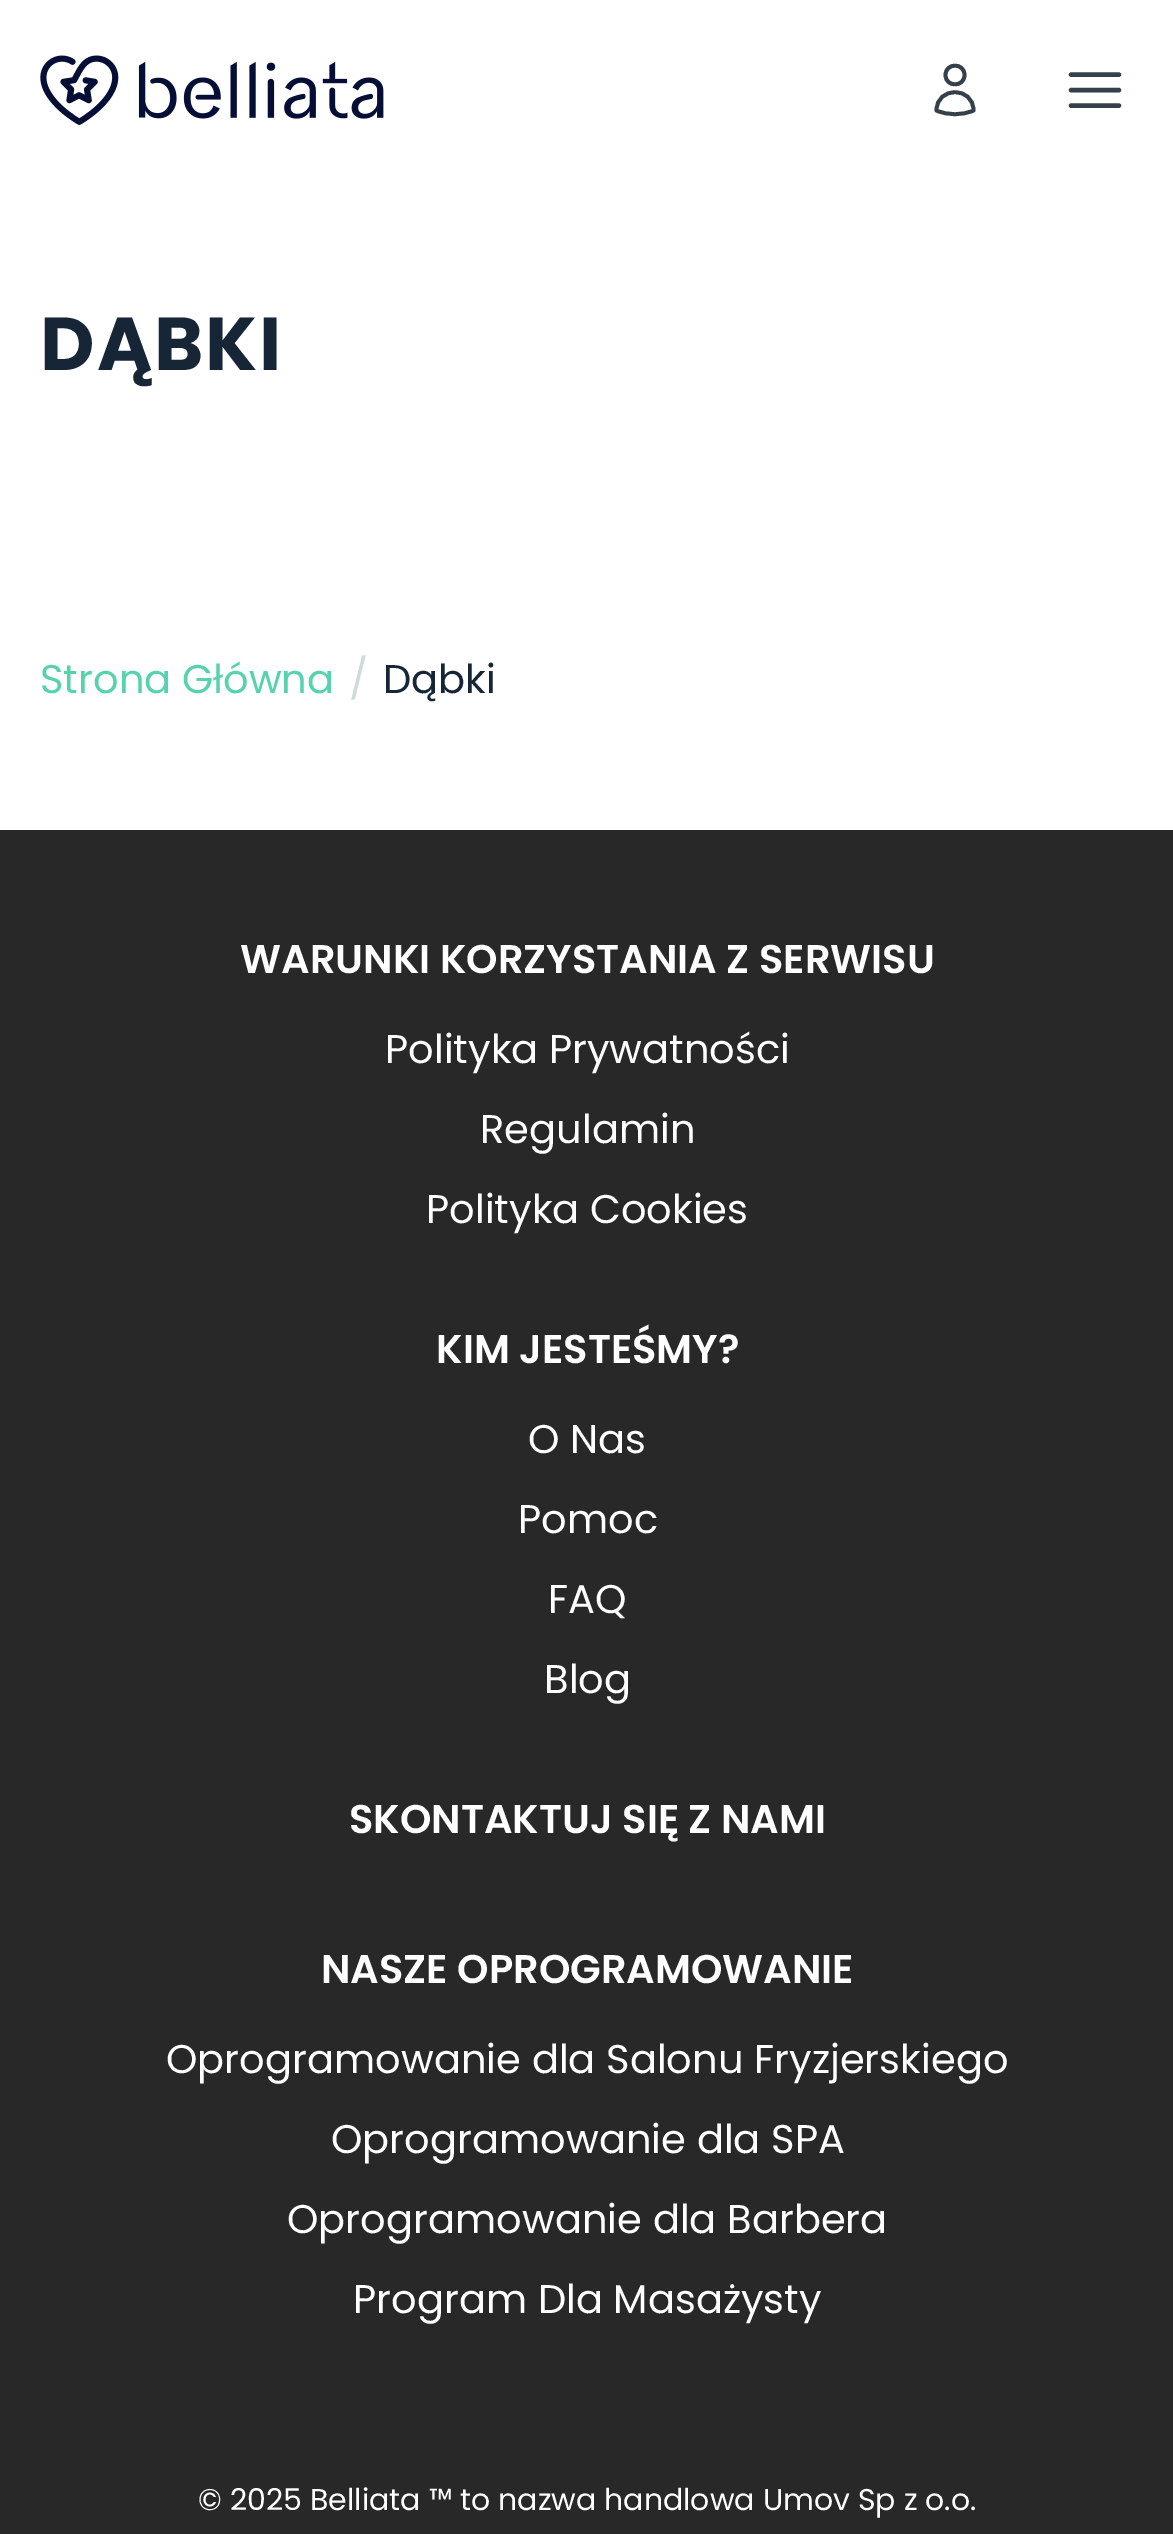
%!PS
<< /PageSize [1173 2534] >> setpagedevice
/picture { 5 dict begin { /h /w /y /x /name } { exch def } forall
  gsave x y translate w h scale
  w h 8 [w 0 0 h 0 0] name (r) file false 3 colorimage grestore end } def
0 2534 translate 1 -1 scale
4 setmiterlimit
1 setgray
0 0 1173 2534 rectfill
(img1.rgb) 40 55 344 70 picture
0.212 0.251 0.29 setrgbcolor
3.8 setlinewidth
1 setlinecap
1 setlinejoin
newpath 964.5 75 moveto 964.5 87.5 945.5 87.5 945.5 75 curveto 945.5 62.5 964.5 62.5 964.5 75 curveto closepath 936.5 110.5 moveto 936.5 86 973.5 86 973.5 110.5 curveto 962 115.5 948 115.5 936.5 110.5 curveto closepath stroke
4.4 setlinewidth
newpath 1071 74.5 moveto 1119 74.5 lineto 1071 90 moveto 1119 90 lineto 1071 105.5 moveto 1119 105.5 lineto stroke
/Poppins-Bold [75 0 0 -75 0 0] selectfont
0.086 0.149 0.216 setrgbcolor
40 370 moveto 2 0 (DĄBKI) ashow
/Poppins-Regular [40 0 0 -40 0 0] selectfont
0.337 0.824 0.682 setrgbcolor
40 693 moveto (Strona Główna) show
0.812 0.855 0.859 setrgbcolor
349 693 moveto (/) show
0.086 0.149 0.216 setrgbcolor
383 693 moveto (Dąbki) show
0.157 setgray
0 830 1173 1704 rectfill
/Poppins-SemiBold [40 0 0 -40 0 0] selectfont
1 setgray
240 973 moveto (WARUNKI KORZYSTANIA Z SERWISU) show
/Poppins-Regular [40 0 0 -40 0 0] selectfont
385 1063 moveto (Polityka Prywatności) show
480 1143 moveto (Regulamin) show
426 1223 moveto (Polityka Cookies) show
/Poppins-SemiBold [40 0 0 -40 0 0] selectfont
436 1363 moveto (KIM JESTEŚMY?) show
/Poppins-Regular [40 0 0 -40 0 0] selectfont
528 1453 moveto (O Nas) show
518 1533 moveto (Pomoc) show
548 1613 moveto (FAQ) show
544 1693 moveto (Blog) show
/Poppins-SemiBold [40 0 0 -40 0 0] selectfont
349 1833 moveto (SKONTAKTUJ SIĘ Z NAMI) show
321 1983 moveto (NASZE OPROGRAMOWANIE) show
/Poppins-Regular [40 0 0 -40 0 0] selectfont
166 2073 moveto (Oprogramowanie dla Salonu Fryzjerskiego) show
331 2153 moveto (Oprogramowanie dla SPA) show
287 2233 moveto (Oprogramowanie dla Barbera) show
353 2313 moveto (Program Dla Masażysty) show
/Poppins-Regular [30 0 0 -30 0 0] selectfont
198 2510 moveto (© 2025 Belliata ™ to nazwa handlowa Umov Sp z o.o.) show
showpage
